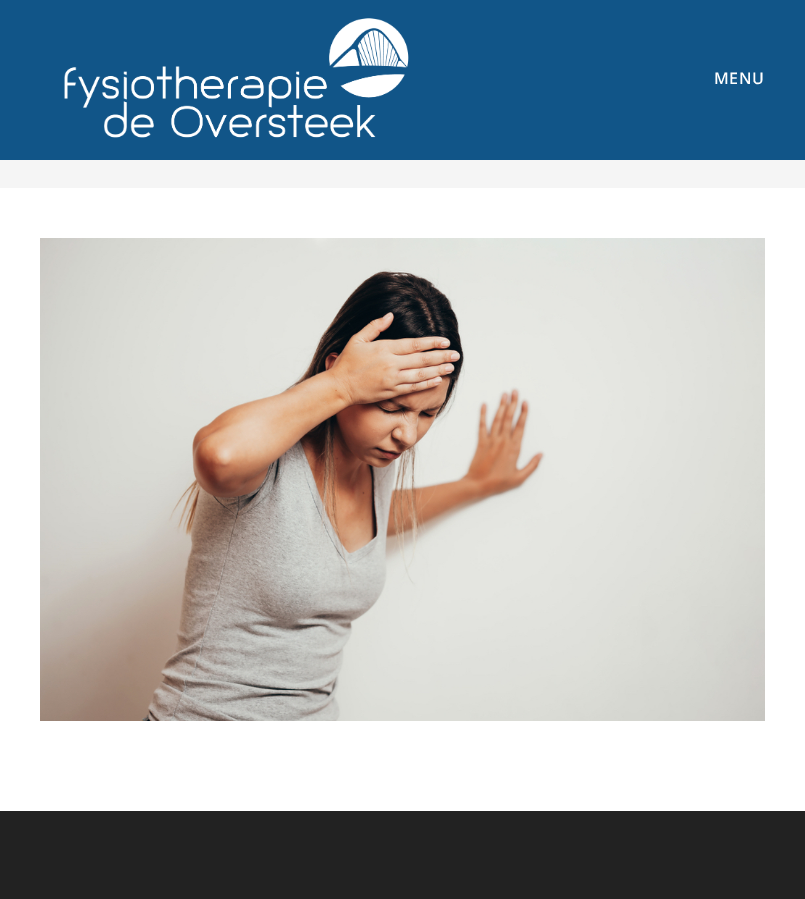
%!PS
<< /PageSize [805 899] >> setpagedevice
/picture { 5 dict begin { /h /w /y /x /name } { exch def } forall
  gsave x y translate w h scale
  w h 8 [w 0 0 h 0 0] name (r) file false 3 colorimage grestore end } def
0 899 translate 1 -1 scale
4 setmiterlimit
1 setgray
0 0 805 899 rectfill
0.067 0.333 0.533 setrgbcolor
0 0 805 160 rectfill
(img1.rgb) 64 18 345 120 picture
/OpenSans-SemiBold [16 0 0 -16 0 0] selectfont
1 setgray
714 84 moveto 0.5 0 (MENU) ashow
0.961 setgray
0 160 805 28 rectfill
(img2.rgb) 40 238 725 483 picture
0.133 setgray
0 811 805 88 rectfill
showpage
